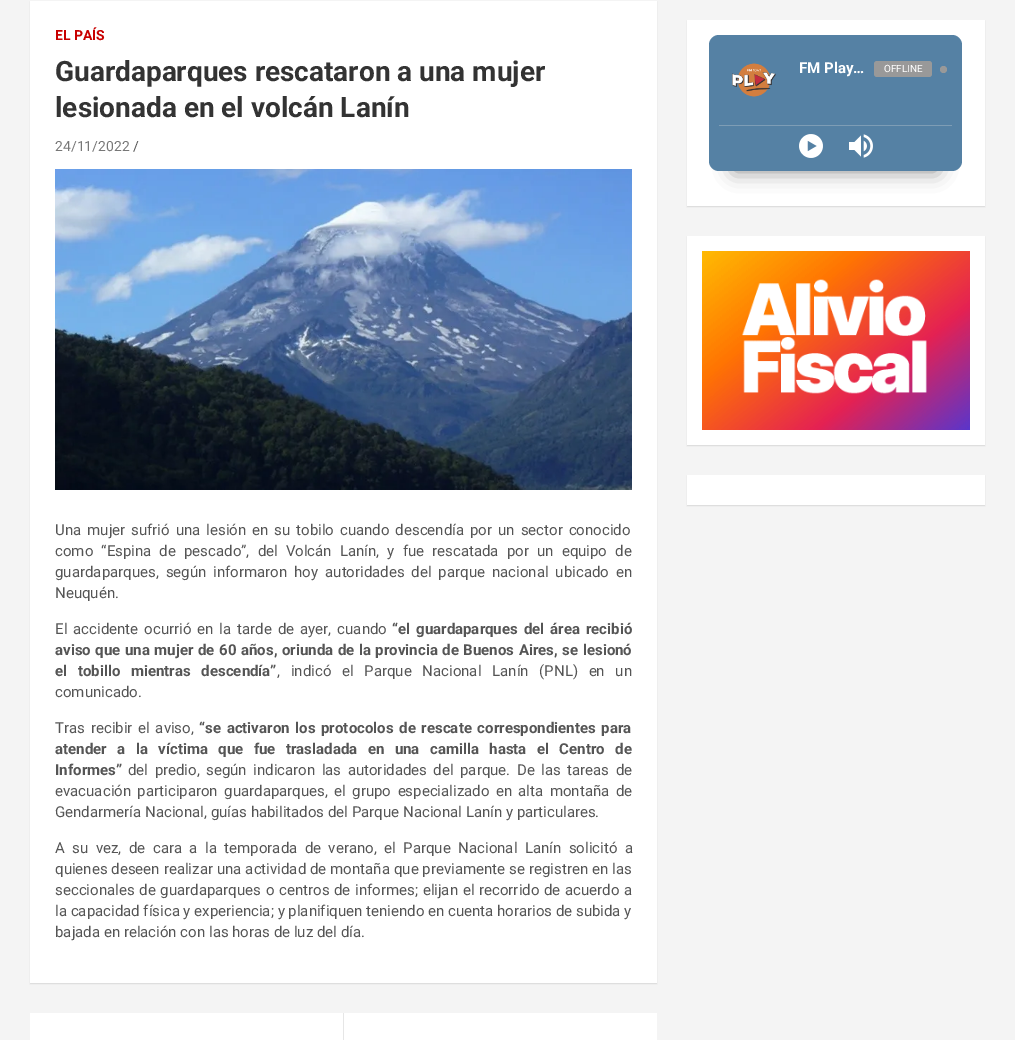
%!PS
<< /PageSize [1015 1040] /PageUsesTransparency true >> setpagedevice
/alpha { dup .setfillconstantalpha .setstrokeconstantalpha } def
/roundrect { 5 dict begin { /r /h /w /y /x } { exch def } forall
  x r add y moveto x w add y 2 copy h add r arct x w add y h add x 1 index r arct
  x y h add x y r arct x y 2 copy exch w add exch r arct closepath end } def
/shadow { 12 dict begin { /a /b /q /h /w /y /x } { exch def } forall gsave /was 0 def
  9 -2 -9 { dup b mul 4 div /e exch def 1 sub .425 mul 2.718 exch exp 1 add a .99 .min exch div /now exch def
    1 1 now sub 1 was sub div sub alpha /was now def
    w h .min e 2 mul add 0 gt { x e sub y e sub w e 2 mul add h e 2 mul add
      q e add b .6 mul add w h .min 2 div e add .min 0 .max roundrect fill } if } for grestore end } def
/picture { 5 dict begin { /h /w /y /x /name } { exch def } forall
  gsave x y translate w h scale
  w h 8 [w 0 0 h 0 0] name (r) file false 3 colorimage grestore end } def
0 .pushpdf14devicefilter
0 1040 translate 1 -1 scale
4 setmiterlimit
0.957 setgray
0 0 1015 1040 rectfill
0 setgray
30 2 627 982 0 0.5 0.1 shadow
1 setgray
30 1 627 982 rectfill
/Roboto-Bold [14 0 0 -14 0 0] selectfont
0.784 0 0 setrgbcolor
55 40 moveto (EL PAÍS) show
/Roboto-Bold [28 0 0 -28 0 0] selectfont
0.2 setgray
55 81 moveto (Guardaparques rescataron a una mujer) show
55 117 moveto (lesionada en el volcán Lanín) show
/Roboto-Regular [14 0 0 -14 0 0] selectfont
0.467 setgray
55 151 moveto (24/11/2022) show
0.333 setgray
133 151 moveto (/) show
(img1.rgb) 55 169 577 321 picture
/Roboto-Regular [15 0 0 -15 0 0] selectfont
55 535 moveto 2.25 0 32 (Una mujer sufrió una lesión en su tobilo cuando descendía por un sector conocido) widthshow
55 556 moveto 4.4 0 32 (como “Espina de pescado”, del Volcán Lanín, y fue rescatada por un equipo de) widthshow
55 577 moveto 3.25 0 32 (guardaparques, según informaron hoy autoridades del parque nacional ubicado en) widthshow
55 598 moveto (Neuquén.) show
55 634 moveto 2.25 0 32 (El accidente ocurrió en la tarde de ayer, cuando) widthshow
/Roboto-Bold [15 0 0 -15 0 0] selectfont
392 634 moveto 2.25 0 32 (“el guardaparques del área recibió) widthshow
55 655 moveto 0.9 0 32 (aviso que una mujer de 60 años, oriunda de la provincia de Buenos Aires, se lesionó) widthshow
55 676 moveto 7 0 32 (el tobillo mientras descendía”) widthshow
/Roboto-Regular [15 0 0 -15 0 0] selectfont
277 676 moveto 7 0 32 (, indicó el Parque Nacional Lanín \(PNL\) en un) widthshow
55 697 moveto (comunicado.) show
55 733 moveto 2 0 32 (Tras recibir el aviso,) widthshow
/Roboto-Bold [15 0 0 -15 0 0] selectfont
199 733 moveto 2 0 32 (“se activaron los protocolos de rescate correspondientes para) widthshow
55 754 moveto 6.75 0 32 (atender a la víctima que fue trasladada en una camilla hasta el Centro de) widthshow
55 775 moveto (Informes”) show
/Roboto-Regular [15 0 0 -15 0 0] selectfont
128 775 moveto 2.75 0 32 (del predio, según indicaron las autoridades del parque. De las tareas de) widthshow
55 796 moveto 2.75 0 32 (evacuación participaron guardaparques, el grupo especializado en alta montaña de) widthshow
55 817 moveto (Gendarmería Nacional, guías habilitados del Parque Nacional Lanín y particulares.) show
55 853 moveto 3.75 0 32 (A su vez, de cara a la temporada de verano, el Parque Nacional Lanín solicitó a) widthshow
55 874 moveto 0.25 0 32 (quienes deseen realizar una actividad de montaña que previamente se registren en las) widthshow
55 895 moveto 1 0 32 (seccionales de guardaparques o centros de informes; elijan el recorrido de acuerdo a) widthshow
55 916 moveto (la capacidad física y experiencia; y planifiquen teniendo en cuenta horarios de subida y) show
55 937 moveto (bajada en relación con las horas de luz del día.) show
1 setgray
30 1013 627 27 rectfill
0.902 setgray
343 1013 1 27 rectfill
0 setgray
687 21 298 186 0 0.5 0.1 shadow
1 setgray
687 20 298 186 rectfill
0 setgray
734 85 203 86 0 10 0.45 shadow
0.333 0.506 0.643 setrgbcolor
709 35 253 136 10 roundrect fill
(img2.rgb) 732 63 44 34 picture
/Roboto-Bold [15 0 0 -15 0 0] selectfont
1 setgray
799 73 moveto (FM Play…) show
0.6 setgray
874 61 58 16 3 roundrect fill
/Roboto-Regular [10 0 0 -10 0 0] selectfont
1 setgray
884 72 moveto (OFFLINE) show
0.6 setgray
newpath 943.5 69.5 3.5 0 360 arc closepath fill
0.494 0.616 0.71 setrgbcolor
719 125 233 1 rectfill
(img3.rgb) 799 134 24 24 picture
(img4.rgb) 849 134 24 24 picture
0 setgray
687 237 298 209 0 0.5 0.1 shadow
1 setgray
687 236 298 209 rectfill
(img5.rgb) 702 251 268 179 picture
0 setgray
687 476 298 30 0 0.5 0.1 shadow
1 setgray
687 475 298 30 rectfill
.poppdf14devicefilter showpage
